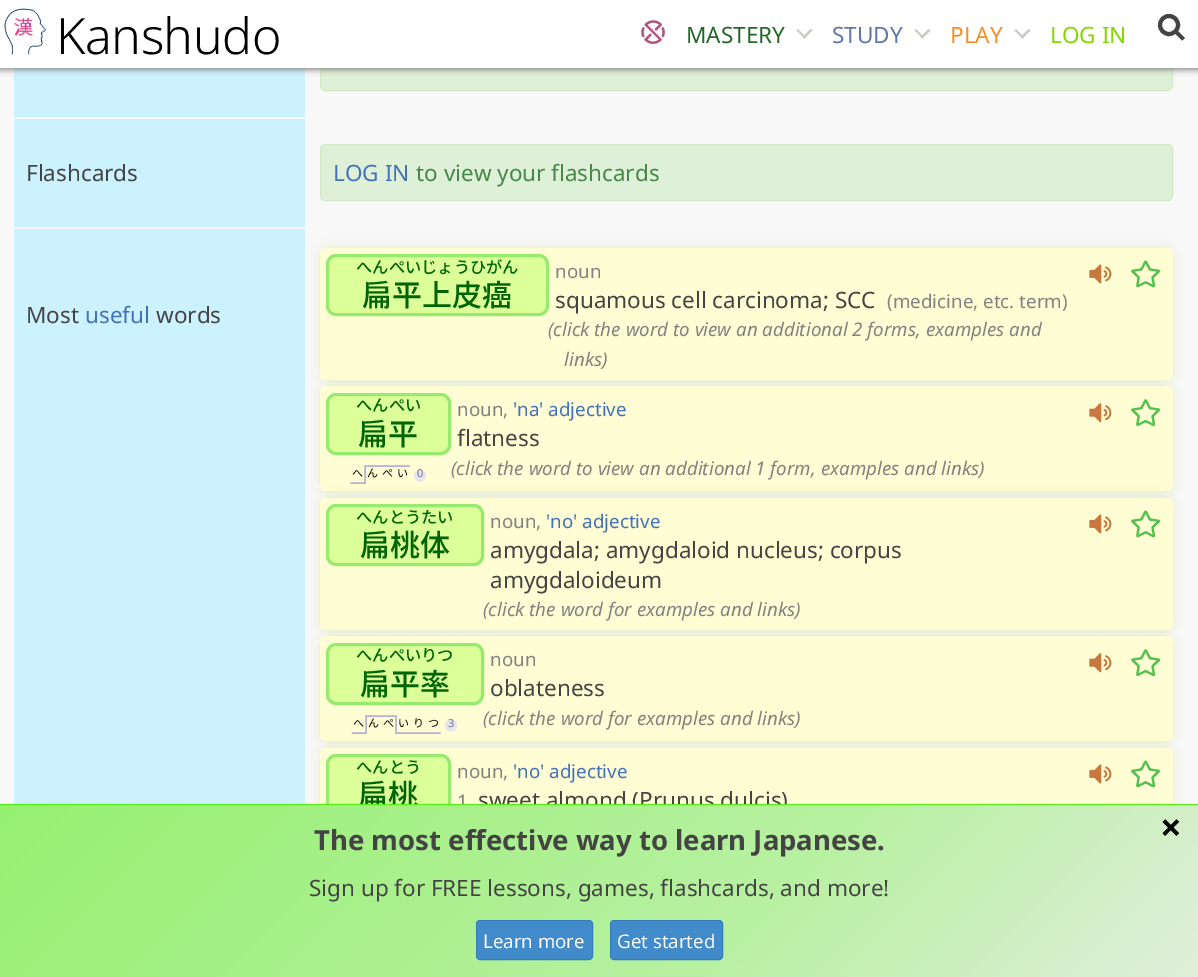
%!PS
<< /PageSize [1198 977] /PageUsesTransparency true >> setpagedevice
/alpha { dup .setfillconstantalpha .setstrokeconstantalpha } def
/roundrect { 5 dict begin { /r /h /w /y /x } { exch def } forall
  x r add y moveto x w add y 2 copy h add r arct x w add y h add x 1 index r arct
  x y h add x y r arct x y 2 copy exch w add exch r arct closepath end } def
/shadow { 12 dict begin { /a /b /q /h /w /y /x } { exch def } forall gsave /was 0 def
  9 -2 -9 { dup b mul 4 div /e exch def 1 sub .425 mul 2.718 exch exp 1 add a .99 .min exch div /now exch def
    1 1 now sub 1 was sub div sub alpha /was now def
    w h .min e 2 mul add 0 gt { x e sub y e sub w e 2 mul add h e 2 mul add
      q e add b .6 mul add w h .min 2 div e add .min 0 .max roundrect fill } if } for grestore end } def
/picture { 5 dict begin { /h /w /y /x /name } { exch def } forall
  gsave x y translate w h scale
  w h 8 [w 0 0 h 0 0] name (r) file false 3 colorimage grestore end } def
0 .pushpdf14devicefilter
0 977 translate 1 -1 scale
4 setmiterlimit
0.973 setgray
0 0 1198 977 rectfill
0.8 0.949 1 setrgbcolor
14 68 291 49 rectfill
0.875 0.941 0.847 setrgbcolor
320.5 34.5 852 56 4.5 roundrect gsave fill grestore
0.839 0.914 0.776 setrgbcolor
stroke
0.533 setgray
0 3 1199 67 0 3 1 shadow
1 setgray
0 0 1198 68 rectfill
(img1.rgb) 4 8 42 47 picture
/NotoSans-Light [50 0 0 -50 0 0] selectfont
0 setgray
56 54 moveto -0.5 0 (Kanshudo) ashow
(img2.rgb) 641 20 24 24 picture
/NotoSans-Regular [22.5 0 0 -22.5 0 0] selectfont
0.133 0.404 0.153 setrgbcolor
686 43 moveto (MASTERY) show
0.788 0.796 0.769 setrgbcolor
newpath 798 29 moveto 806 37 lineto 804.5 38.5 lineto 796.5 30.5 lineto closepath fill
newpath 802.5 37 moveto 810.5 29 lineto 812.5 30.5 lineto 804.5 38.5 lineto closepath fill
0.365 0.463 0.675 setrgbcolor
832 43 moveto (STUDY) show
0.788 0.796 0.769 setrgbcolor
newpath 916 29 moveto 924 37 lineto 922.5 38.5 lineto 914.5 30.5 lineto closepath fill
newpath 920.5 37 moveto 928.5 29 lineto 930.5 30.5 lineto 922.5 38.5 lineto closepath fill
0.949 0.557 0.169 setrgbcolor
950 43 moveto (PLAY) show
0.788 0.796 0.769 setrgbcolor
newpath 1016 29 moveto 1024 37 lineto 1022.5 38.5 lineto 1014.5 30.5 lineto closepath fill
newpath 1020.5 37 moveto 1028.5 29 lineto 1030.5 30.5 lineto 1022.5 38.5 lineto closepath fill
0.51 0.843 0 setrgbcolor
1050 43 moveto (LOG IN) show
0.267 setgray
4 setlinewidth
newpath 1169 25 9 0 360 arc closepath stroke
newpath 1178 31 moveto 1185 38 lineto 1182 40.5 lineto 1175 33.5 lineto closepath fill
0.8 0.949 1 setrgbcolor
14 119 291 108 rectfill
0.267 setgray
26 181 moveto (Flashcards) show
0.875 0.941 0.847 setrgbcolor
320.5 144.5 852 56 4.5 roundrect gsave fill grestore
0.839 0.914 0.776 setrgbcolor
1 setlinewidth
stroke
0.267 0.447 0.725 setrgbcolor
333 181 moveto (LOG IN) show
0.275 0.533 0.278 setrgbcolor
416 181 moveto (to view your flashcards) show
0.8 0.949 1 setrgbcolor
14 229 291 575 rectfill
0.267 setgray
26 323 moveto (Most) show
0.267 0.447 0.725 setrgbcolor
85 323 moveto (useful) show
0.267 setgray
156 323 moveto (words) show
0.733 0.812 0.416 setrgbcolor
328 255 837 118 0 8 1 shadow
1 0.992 0.827 setrgbcolor
320 248 853 132 6 roundrect fill
0.867 1 0.6 setrgbcolor
327.5 255.5 220 59 8.5 roundrect gsave fill grestore
0.596 0.914 0.435 setrgbcolor
3 setlinewidth
stroke
/NotoSansCJKJP-Medium [16.25 0 0 -16.25 0 0] selectfont
0 0.392 0 setrgbcolor
356 273 moveto (へんぺいじょうひがん) show
/NotoSansCJKJP-Medium [30 0 0 -30 0 0] selectfont
362 306 moveto (扁平上皮癌) show
/NotoSans-Regular [18.75 0 0 -18.75 0 0] selectfont
0.51 setgray
555 278 moveto (noun) show
/NotoSans-Regular [22.5 0 0 -22.5 0 0] selectfont
0.267 setgray
555 308 moveto (squamous cell carcinoma; SCC) show
/NotoSans-Regular [18.75 0 0 -18.75 0 0] selectfont
0.51 setgray
887 308 moveto (\(medicine, etc. term\)) show
/NotoSans-Italic [18.75 0 0 -18.75 0 0] selectfont
548 336 moveto (\(click the word to view an additional 2 forms, examples and) show
564 366 moveto (links\)) show
(img3.rgb) 1089 264 23 20 picture
(img4.rgb) 1131 260 30 28 picture
0.733 0.812 0.416 setrgbcolor
328 394 837 90 0 8 1 shadow
1 0.992 0.827 setrgbcolor
320 386 853 105 6 roundrect fill
0.867 1 0.6 setrgbcolor
327.5 394.5 122 59 8.5 roundrect gsave fill grestore
0.596 0.914 0.435 setrgbcolor
stroke
/NotoSansCJKJP-Medium [16.25 0 0 -16.25 0 0] selectfont
0 0.392 0 setrgbcolor
356 411 moveto (へんぺい) show
/NotoSansCJKJP-Medium [30 0 0 -30 0 0] selectfont
358 445 moveto (扁平) show
/NotoSansCJKJP-Regular [11 0 0 -11 0 0] selectfont
0 setgray
352 477 moveto (へ) show
367 477 moveto (ん) show
382 477 moveto (ぺ) show
397 477 moveto (い) show
0.733 0.812 0.416 setrgbcolor
328 505 837 118 0 8 1 shadow
0.698 0.69 0.839 setrgbcolor
1.6 setlinewidth
1 setlinecap
1 setlinejoin
newpath 351 483 moveto 365 483 lineto 365 466 lineto 409 466 lineto stroke
0.898 0.898 0.922 setrgbcolor
newpath 420 475.5 6 0 360 arc closepath fill
/NotoSans-Regular [11 0 0 -11 0 0] selectfont
0.467 0.459 0.557 setrgbcolor
417 477 moveto (0) show
/NotoSans-Regular [18.75 0 0 -18.75 0 0] selectfont
0.51 setgray
457 416 moveto (noun,) show
0.267 0.447 0.725 setrgbcolor
513 416 moveto ('na' adjective) show
/NotoSans-Regular [22.5 0 0 -22.5 0 0] selectfont
0.267 setgray
457 446 moveto (flatness) show
/NotoSans-Italic [18.75 0 0 -18.75 0 0] selectfont
0.51 setgray
451 475 moveto (\(click the word to view an additional 1 form, examples and links\)) show
(img5.rgb) 1089 403 23 20 picture
(img6.rgb) 1131 399 30 28 picture
1 0.992 0.827 setrgbcolor
320 498 853 132 6 roundrect fill
0.867 1 0.6 setrgbcolor
327.5 505.5 155 59 8.5 roundrect gsave fill grestore
0.596 0.914 0.435 setrgbcolor
3 setlinewidth
0 setlinecap
0 setlinejoin
stroke
/NotoSansCJKJP-Medium [16.25 0 0 -16.25 0 0] selectfont
0 0.392 0 setrgbcolor
356 523 moveto (へんとうたい) show
/NotoSansCJKJP-Medium [30 0 0 -30 0 0] selectfont
360 556 moveto (扁桃体) show
/NotoSans-Regular [18.75 0 0 -18.75 0 0] selectfont
0.51 setgray
490 528 moveto (noun,) show
0.267 0.447 0.725 setrgbcolor
546 528 moveto ('no' adjective) show
/NotoSans-Regular [22.5 0 0 -22.5 0 0] selectfont
0.267 setgray
490 558 moveto (amygdala; amygdaloid nucleus; corpus) show
490 588 moveto (amygdaloideum) show
0.733 0.812 0.416 setrgbcolor
328 644 837 90 0 8 1 shadow
/NotoSans-Italic [18.75 0 0 -18.75 0 0] selectfont
0.51 setgray
483 616 moveto (\(click the word for examples and links\)) show
(img3.rgb) 1089 514 23 20 picture
(img4.rgb) 1131 510 30 28 picture
1 0.992 0.827 setrgbcolor
320 636 853 105 6 roundrect fill
0.867 1 0.6 setrgbcolor
327.5 644.5 155 59 8.5 roundrect gsave fill grestore
0.596 0.914 0.435 setrgbcolor
stroke
/NotoSansCJKJP-Medium [16.25 0 0 -16.25 0 0] selectfont
0 0.392 0 setrgbcolor
356 661 moveto (へんぺいりつ) show
/NotoSansCJKJP-Medium [30 0 0 -30 0 0] selectfont
360 695 moveto (扁平率) show
/NotoSansCJKJP-Regular [11 0 0 -11 0 0] selectfont
0 setgray
353 727 moveto (へ) show
368 727 moveto (ん) show
383 727 moveto (ぺ) show
398 727 moveto (い) show
413 727 moveto (り) show
428 727 moveto (つ) show
0.733 0.812 0.416 setrgbcolor
328 755 837 118 0 8 1 shadow
0.698 0.69 0.839 setrgbcolor
1.6 setlinewidth
1 setlinecap
1 setlinejoin
newpath 352.5 733 moveto 366 733 lineto 366 716 lineto 396 716 lineto 396 733 lineto 440 733 lineto stroke
0.898 0.898 0.922 setrgbcolor
newpath 451 725.5 6 0 360 arc closepath fill
/NotoSans-Regular [11 0 0 -11 0 0] selectfont
0.467 0.459 0.557 setrgbcolor
448 727 moveto (3) show
/NotoSans-Regular [18.75 0 0 -18.75 0 0] selectfont
0.51 setgray
490 666 moveto (noun) show
/NotoSans-Regular [22.5 0 0 -22.5 0 0] selectfont
0.267 setgray
490 696 moveto (oblateness) show
/NotoSans-Italic [18.75 0 0 -18.75 0 0] selectfont
0.51 setgray
483 725 moveto (\(click the word for examples and links\)) show
(img5.rgb) 1089 653 23 20 picture
(img6.rgb) 1131 649 30 28 picture
1 0.992 0.827 setrgbcolor
320 748 853 132 6 roundrect fill
0.867 1 0.6 setrgbcolor
327.5 755.5 122 59 8.5 roundrect gsave fill grestore
0.596 0.914 0.435 setrgbcolor
3 setlinewidth
0 setlinecap
0 setlinejoin
stroke
/NotoSansCJKJP-Medium [16.25 0 0 -16.25 0 0] selectfont
0 0.392 0 setrgbcolor
356 773 moveto (へんとう) show
/NotoSansCJKJP-Medium [30 0 0 -30 0 0] selectfont
358 806 moveto (扁桃) show
/NotoSans-Regular [18.75 0 0 -18.75 0 0] selectfont
0.51 setgray
457 778 moveto (noun,) show
0.267 0.447 0.725 setrgbcolor
513 778 moveto ('no' adjective) show
0.51 setgray
457 808 moveto (1) show
/NotoSans-Regular [22.5 0 0 -22.5 0 0] selectfont
0.267 setgray
478 808 moveto (sweet almond \(Prunus dulcis\)) show
(img3.rgb) 1089 764 23 20 picture
(img4.rgb) 1131 760 30 28 picture
gsave newpath 0 805 moveto 1198 805 lineto 1198 977 lineto 0 977 lineto closepath clip newpath
<< /ShadingType 2 /ColorSpace /DeviceRGB /Coords [257 548 942 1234] /Extend [true true] /Function << /FunctionType 3 /Domain [0 1] /Functions [<< /FunctionType 2 /Domain [0 1] /C0 [0.584 0.941 0.439] /C1 [0.729 0.941 0.643] /N 1 >> << /FunctionType 2 /Domain [0 1] /C0 [0.729 0.941 0.643] /C1 [0.882 0.937 0.863] /N 1 >>] /Bounds [0.65] /Encode [0 1 0 1] >> >> shfill grestore
0.318 0.941 0.063 setrgbcolor
0 804 1198 1 rectfill
/NotoSans-Bold [27.5 0 0 -27.5 0 0] selectfont
0.267 setgray
314 850 moveto (The most effective way to learn Japanese.) show
/NotoSans-Bold [38 0 0 -38 0 0] selectfont
0 setgray
1160 841 moveto (×) show
/NotoSans-Regular [22.5 0 0 -22.5 0 0] selectfont
0.267 setgray
309 896 moveto (Sign up for FREE lessons, games, flashcards, and more!) show
0.259 0.545 0.792 setrgbcolor
476.5 920.5 116 39 3.5 roundrect gsave fill grestore
0.208 0.494 0.741 setrgbcolor
1 setlinewidth
stroke
/OpenSans-Regular [18.75 0 0 -18.75 0 0] selectfont
1 setgray
483 948 moveto (Learn more) show
0.259 0.545 0.792 setrgbcolor
610.5 920.5 112 39 3.5 roundrect gsave fill grestore
0.208 0.494 0.741 setrgbcolor
stroke
1 setgray
617 948 moveto (Get started) show
.poppdf14devicefilter showpage
